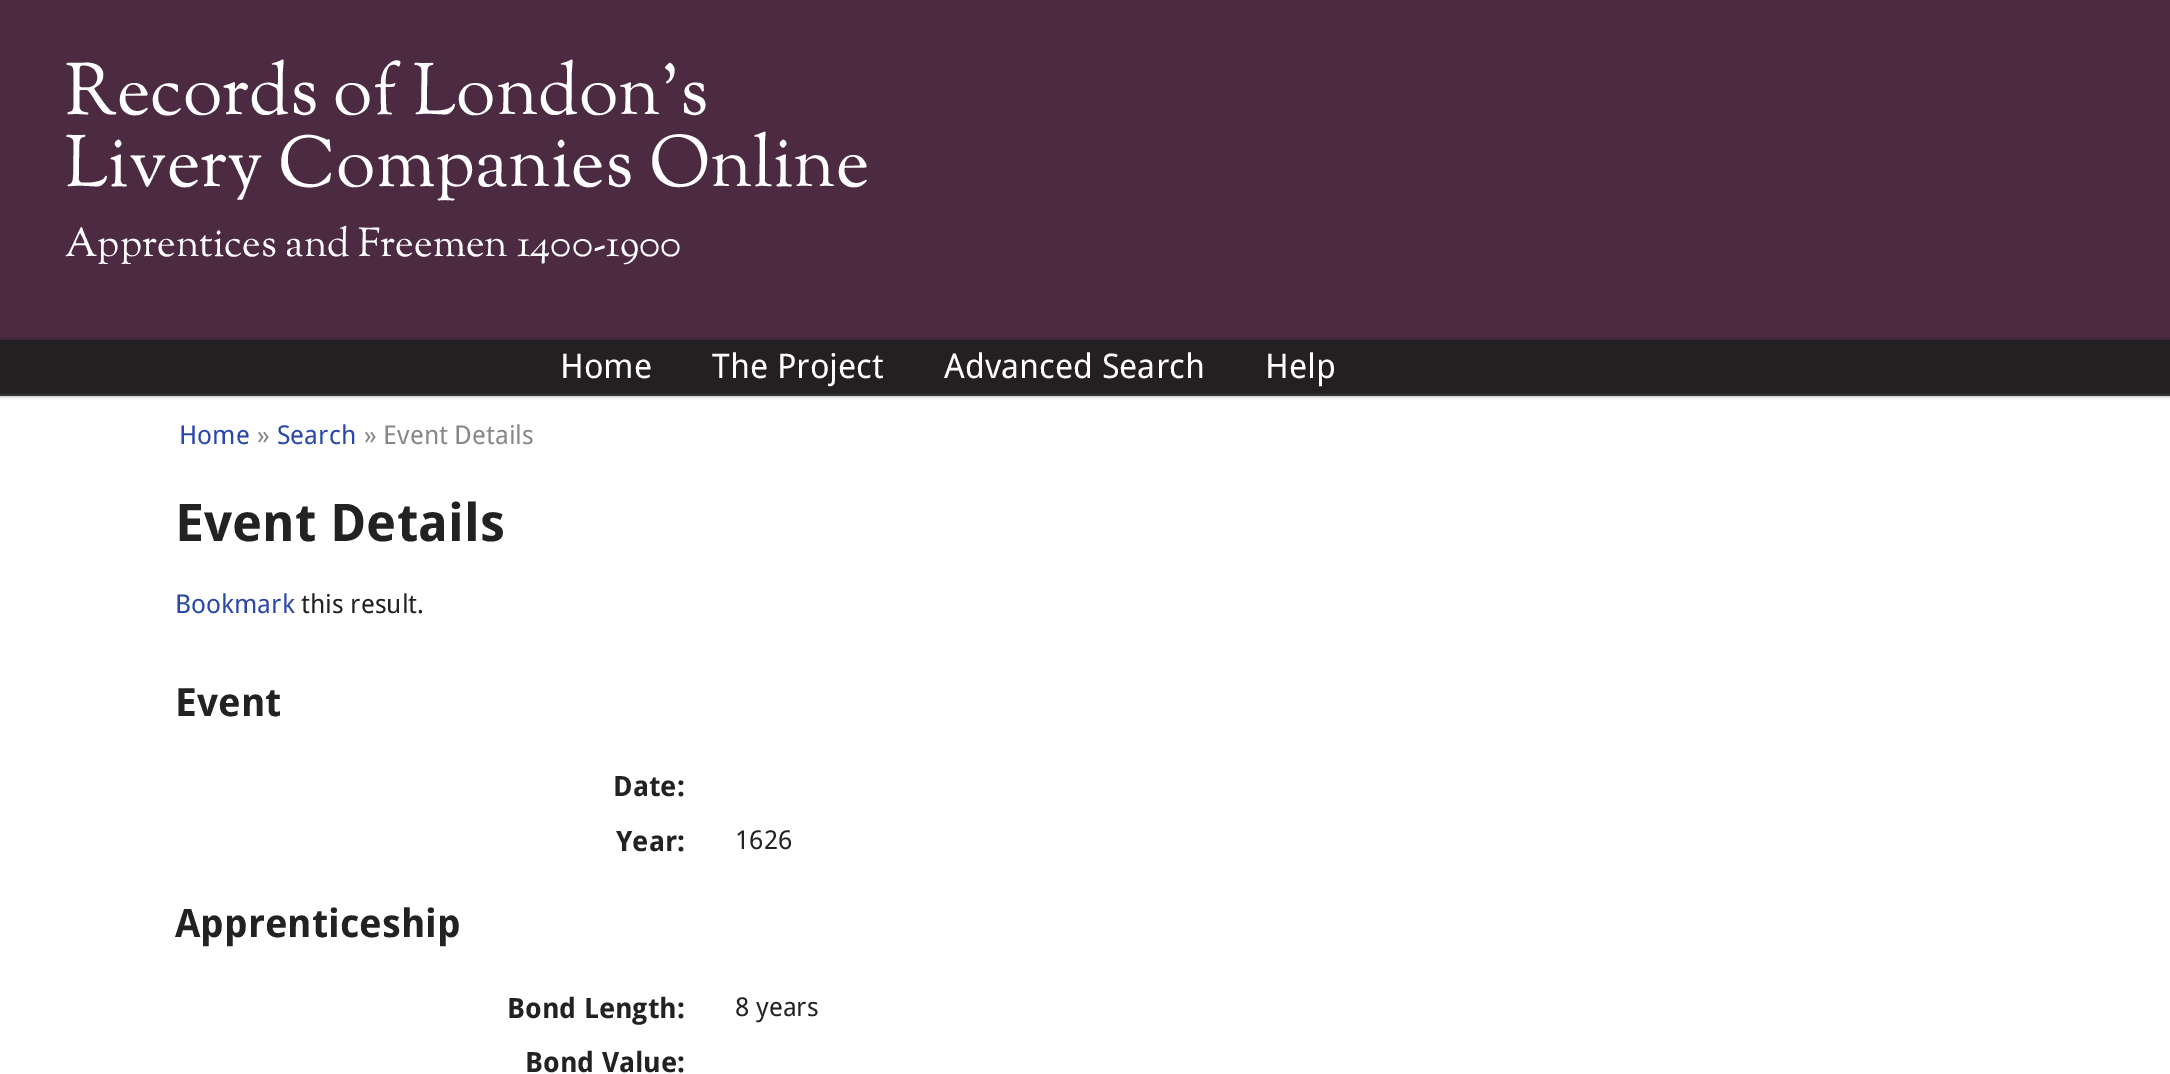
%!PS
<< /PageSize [2170 1074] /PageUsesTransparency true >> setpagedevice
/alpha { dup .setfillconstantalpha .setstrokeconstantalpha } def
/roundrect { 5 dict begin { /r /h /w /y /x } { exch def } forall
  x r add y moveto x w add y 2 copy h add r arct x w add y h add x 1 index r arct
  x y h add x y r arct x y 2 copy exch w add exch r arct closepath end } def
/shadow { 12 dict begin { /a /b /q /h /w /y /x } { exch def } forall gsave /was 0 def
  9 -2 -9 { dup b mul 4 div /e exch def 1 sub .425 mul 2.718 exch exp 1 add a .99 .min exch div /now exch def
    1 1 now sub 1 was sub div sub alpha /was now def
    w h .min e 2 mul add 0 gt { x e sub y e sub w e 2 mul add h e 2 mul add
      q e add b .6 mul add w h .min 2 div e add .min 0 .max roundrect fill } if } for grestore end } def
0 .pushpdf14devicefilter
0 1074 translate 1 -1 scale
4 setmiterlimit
1 setgray
0 0 2170 1074 rectfill
0.294 0.165 0.259 setrgbcolor
0 0 2170 340 rectfill
/SortsMillGoudy-Regular [72 0 0 -72 0 0] selectfont
1 setgray
65 114 moveto (Records of London's) show
65 186 moveto (Livery Companies Online) show
/SortsMillGoudy-Regular [40 0 0 -40 0 0] selectfont
65 256 moveto (Apprentices and Freemen 1400-1900) show
0.004 setgray
0 340 2170 56 0 2 0.4 shadow
0.141 0.122 0.125 setrgbcolor
0 340 2170 54 rectfill
0.212 0.204 0.208 setrgbcolor
0 394 2170 2 rectfill
/DroidSans-Regular [34 0 0 -34 0 0] selectfont
1 setgray
560 378 moveto (Home) show
712 378 moveto (The Project) show
944 378 moveto (Advanced Search) show
1265 378 moveto (Help) show
/DroidSans-Regular [26 0 0 -26 0 0] selectfont
0.165 0.282 0.663 setrgbcolor
179 444 moveto (Home) show
0.533 setgray
257 444 moveto (») show
0.165 0.282 0.663 setrgbcolor
277 444 moveto (Search) show
0.533 setgray
364 444 moveto (» Event Details) show
/DroidSans-Bold [52 0 0 -52 0 0] selectfont
0.133 setgray
175 541 moveto (Event Details) show
/DroidSans-Regular [26 0 0 -26 0 0] selectfont
0.165 0.282 0.663 setrgbcolor
175 613 moveto (Bookmark) show
0.133 setgray
301 613 moveto (this result.) show
/DroidSans-Bold [39 0 0 -39 0 0] selectfont
175 716 moveto (Event) show
/DroidSans-Bold [28 0 0 -28 0 0] selectfont
613 796 moveto (Date:) show
616 851 moveto (Year:) show
/DroidSans-Regular [26 0 0 -26 0 0] selectfont
735 849 moveto (1626) show
/DroidSans-Bold [39 0 0 -39 0 0] selectfont
175 937 moveto (Apprenticeship) show
/DroidSans-Bold [28 0 0 -28 0 0] selectfont
507 1018 moveto (Bond Length:) show
/DroidSans-Regular [26 0 0 -26 0 0] selectfont
735 1016 moveto (8 years) show
/DroidSans-Bold [28 0 0 -28 0 0] selectfont
525 1072 moveto (Bond Value:) show
.poppdf14devicefilter showpage
